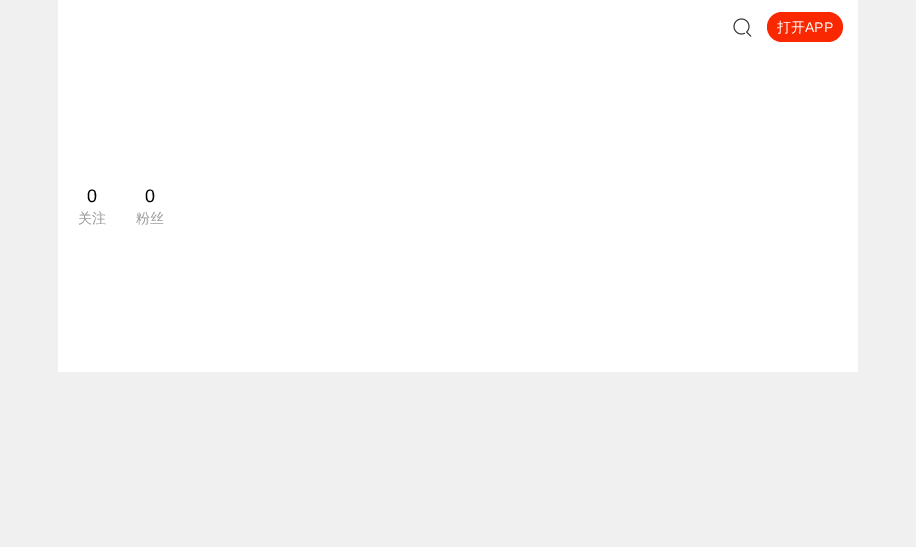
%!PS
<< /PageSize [916 547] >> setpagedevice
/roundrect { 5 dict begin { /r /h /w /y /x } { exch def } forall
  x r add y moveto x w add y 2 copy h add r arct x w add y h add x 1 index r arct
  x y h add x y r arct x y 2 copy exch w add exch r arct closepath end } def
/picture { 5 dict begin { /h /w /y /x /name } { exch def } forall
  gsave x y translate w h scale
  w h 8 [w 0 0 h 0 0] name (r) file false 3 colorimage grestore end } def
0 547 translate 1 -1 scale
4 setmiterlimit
0.941 setgray
0 0 916 547 rectfill
1 setgray
58 0 800 372 rectfill
(img1.rgb) 733 18 19 19 picture
0.98 0.157 0 setrgbcolor
767 12 76 30 15 roundrect fill
/WenQuanYiZenHei-Medium [14 0 0 -14 0 0] selectfont
1 setgray
777 32 moveto (打开) show
/LiberationSans-Regular [14 0 0 -14 0 0] selectfont
805 32 moveto (APP) show
/LiberationSans-Regular [18 0 0 -18 0 0] selectfont
0 setgray
87 202 moveto (0) show
/WenQuanYiZenHei-Medium [14 0 0 -14 0 0] selectfont
0.6 setgray
78 223 moveto (关注) show
/LiberationSans-Regular [18 0 0 -18 0 0] selectfont
0 setgray
145 202 moveto (0) show
/WenQuanYiZenHei-Medium [14 0 0 -14 0 0] selectfont
0.6 setgray
136 223 moveto (粉丝) show
showpage
